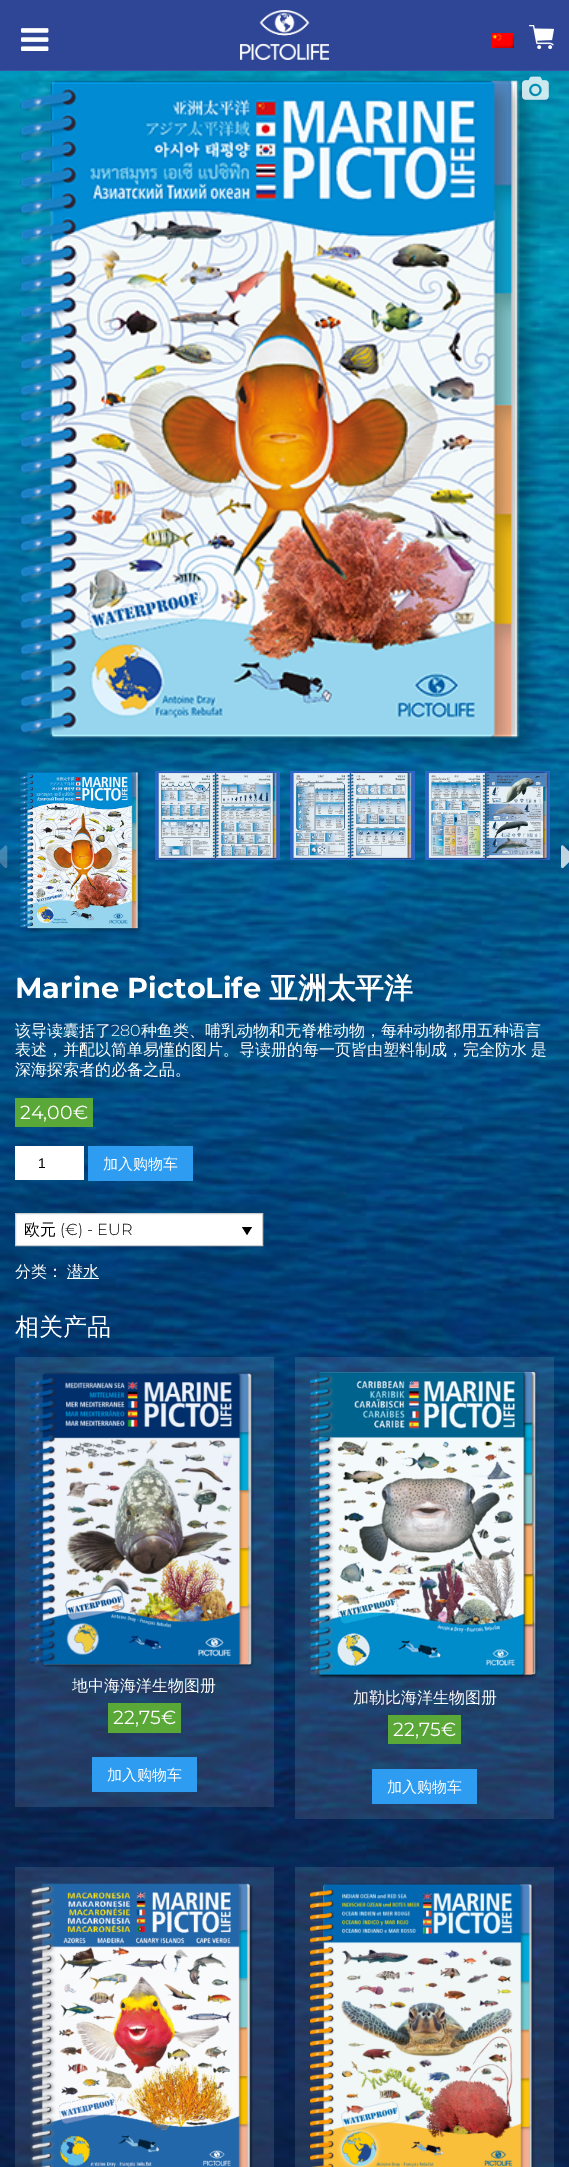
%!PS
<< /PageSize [569 2167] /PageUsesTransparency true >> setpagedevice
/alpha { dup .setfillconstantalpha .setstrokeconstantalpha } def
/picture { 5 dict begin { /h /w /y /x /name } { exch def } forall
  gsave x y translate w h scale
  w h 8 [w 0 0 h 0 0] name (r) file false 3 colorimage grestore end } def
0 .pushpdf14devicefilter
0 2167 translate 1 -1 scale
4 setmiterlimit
1 setgray
0 0 569 2167 rectfill
(img1.rgb) 0 71 569 2096 picture
0.184 0.275 0.588 setrgbcolor
0 0 569 70 rectfill
0.227 0.322 0.639 setrgbcolor
0 70 569 1 rectfill
(img2.rgb) 21 28 28 23 picture
(img3.rgb) 240 10 89 50 picture
(img4.rgb) 491 33 23 15 picture
(img5.rgb) 529 25 25 24 picture
(img6.rgb) 20 76 520 683 picture
(img7.rgb) 522 76 27 24 picture
(img8.rgb) 0 845 8 23 picture
(img9.rgb) 20 772 123 161 picture
(img10.rgb) 155 771 125 89 picture
(img11.rgb) 290 771 125 89 picture
(img12.rgb) 425 771 125 89 picture
(img13.rgb) 561 845 8 24 picture
/Montserrat-Bold [28.75 0 0 -28.75 0 0] selectfont
1 setgray
15 998 moveto (Marine PictoLife) show
/WenQuanYiZenHei-Bold [28.75 0 0 -28.75 0 0] selectfont
269 998 moveto (亚洲太平洋) show
/WenQuanYiZenHei-Medium [16 0 0 -16 0 0] selectfont
15 1036 moveto (该导读囊括了) show
/Montserrat-Light [16 0 0 -16 0 0] selectfont
111 1036 moveto (280) show
/WenQuanYiZenHei-Medium [16 0 0 -16 0 0] selectfont
141 1036 moveto (种鱼类、哺乳动物和无脊椎动物，每种动物都用五种语言) show
15 1055 moveto -1 0 32 (表述，并配以简单易懂的图片。导读册的每一页皆由塑料制成，完全防水 是) widthshow
15 1075 moveto (深海探索者的必备之品。) show
0.353 0.663 0.22 setrgbcolor
15 1098 78 29 rectfill
/Montserrat-Regular [19 0 0 -19 0 0] selectfont
1 setgray
20 1119 moveto (24,00€) show
15 1146 69 34 rectfill
/LiberationSans-Regular [14 0 0 -14 0 0] selectfont
0 setgray
38 1168 moveto (1) show
0.176 0.612 0.945 setrgbcolor
88 1146 105 35 rectfill
/WenQuanYiZenHei-Medium [15 0 0 -15 0 0] selectfont
1 setgray
103 1169 moveto (加入购物车) show
newpath 15.5 1213.5 moveto 262.5 1213.5 lineto 262.5 1245.5 lineto 15.5 1245.5 lineto closepath gsave fill grestore
0.804 setgray
stroke
/WenQuanYiZenHei-Medium [16 0 0 -16 0 0] selectfont
0 setgray
24 1235 moveto (欧元) show
/Montserrat-Light [16 0 0 -16 0 0] selectfont
60 1235 moveto (\(€\) - EUR) show
newpath 242 1227 moveto 252 1227 lineto 247 1235 lineto closepath fill
/WenQuanYiZenHei-Medium [16 0 0 -16 0 0] selectfont
1 setgray
15 1277 moveto (分类：) show
67 1278 32 1 rectfill
67 1277 moveto (潜水) show
/WenQuanYiZenHei-Medium [24 0 0 -24 0 0] selectfont
15 1335 moveto (相关产品) show
0.1 alpha
15 1357 259 450 rectfill
1 alpha
(img14.rgb) 30 1372 224 296 picture
/WenQuanYiZenHei-Medium [16 0 0 -16 0 0] selectfont
72 1691 moveto (地中海海洋生物图册) show
0.353 0.663 0.22 setrgbcolor
108 1703 73 30 rectfill
/Montserrat-Regular [19 0 0 -19 0 0] selectfont
1 setgray
113 1724 moveto (22,75€) show
0.176 0.612 0.945 setrgbcolor
92 1757 105 35 rectfill
/WenQuanYiZenHei-Medium [15 0 0 -15 0 0] selectfont
1 setgray
107 1780 moveto (加入购物车) show
0.1 alpha
295 1357 259 462 rectfill
1 alpha
(img15.rgb) 310 1372 228 307 picture
/WenQuanYiZenHei-Medium [16 0 0 -16 0 0] selectfont
353 1703 moveto (加勒比海洋生物图册) show
0.353 0.663 0.22 setrgbcolor
388 1715 73 29 rectfill
/Montserrat-Regular [19 0 0 -19 0 0] selectfont
1 setgray
393 1736 moveto (22,75€) show
0.176 0.612 0.945 setrgbcolor
372 1769 105 35 rectfill
/WenQuanYiZenHei-Medium [15 0 0 -15 0 0] selectfont
1 setgray
387 1792 moveto (加入购物车) show
0.1 alpha
15 1867 259 300 rectfill
1 alpha
(img16.rgb) 30 1883 223 284 picture
0.1 alpha
295 1867 259 300 rectfill
1 alpha
(img17.rgb) 310 1883 225 284 picture
.poppdf14devicefilter showpage
